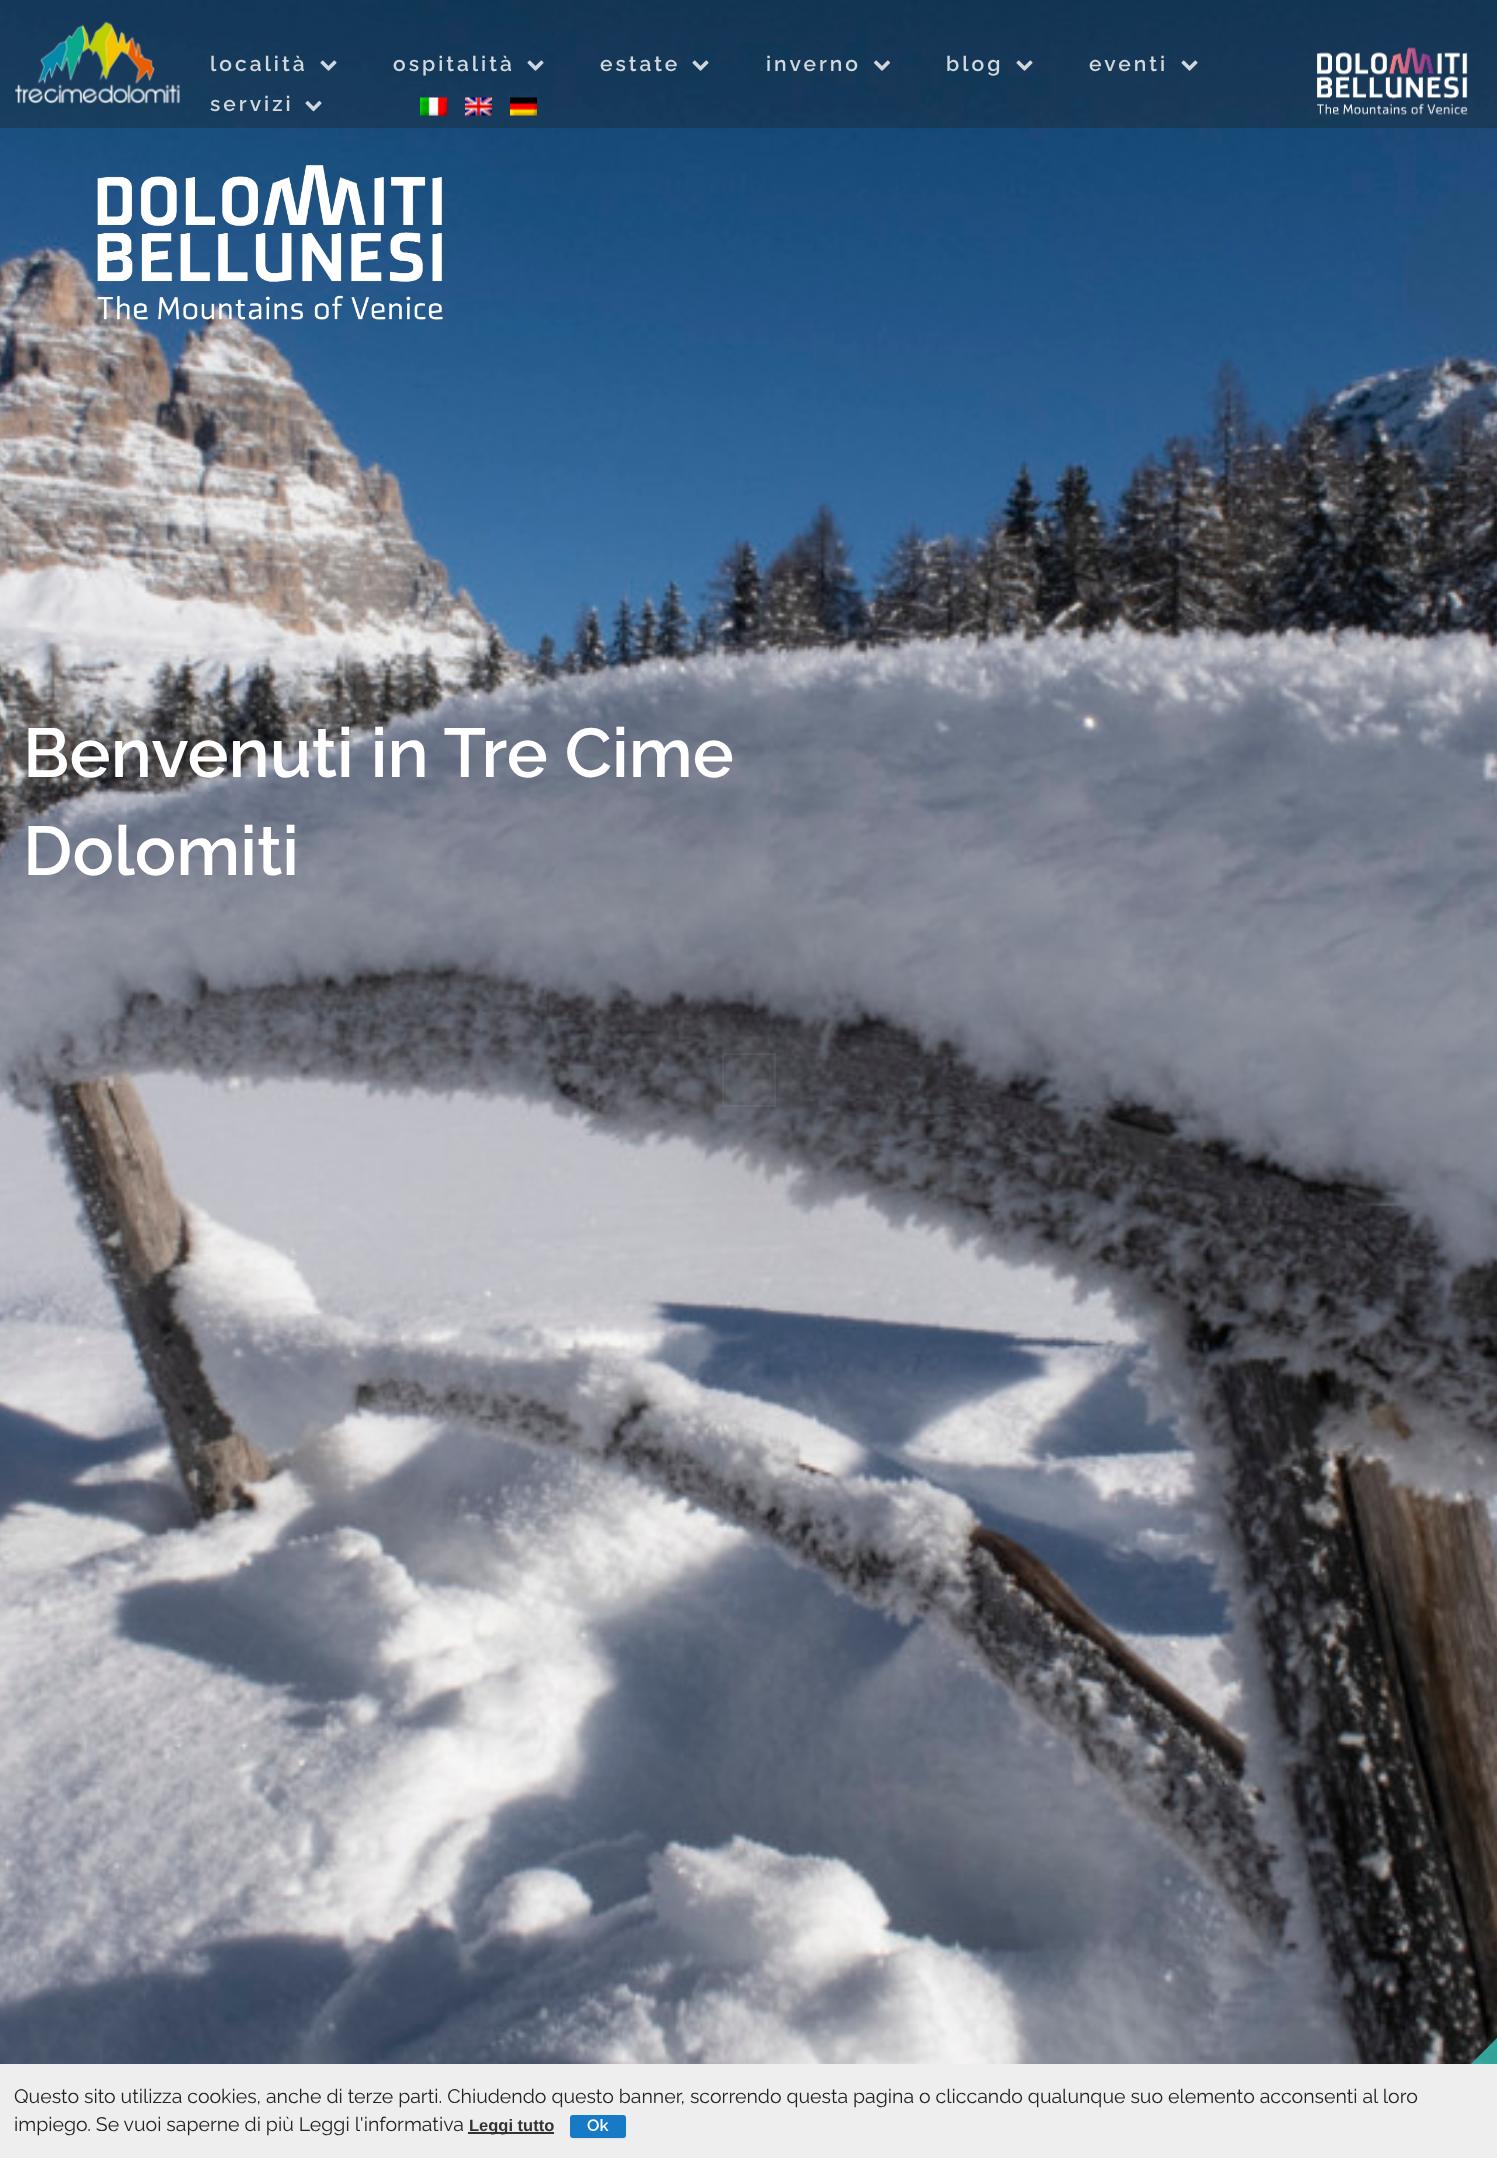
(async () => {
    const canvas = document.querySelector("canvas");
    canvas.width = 1497;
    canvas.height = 2158;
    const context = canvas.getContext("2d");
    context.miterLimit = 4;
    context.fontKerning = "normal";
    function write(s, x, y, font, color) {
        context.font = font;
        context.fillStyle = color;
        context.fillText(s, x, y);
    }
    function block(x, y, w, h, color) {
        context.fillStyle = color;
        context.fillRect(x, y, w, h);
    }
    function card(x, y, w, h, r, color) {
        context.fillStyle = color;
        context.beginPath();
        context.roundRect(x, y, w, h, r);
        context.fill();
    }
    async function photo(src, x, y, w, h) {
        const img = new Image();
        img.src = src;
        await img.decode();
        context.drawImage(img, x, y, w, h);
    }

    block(0, 0, 1497, 2158, "rgb(255, 255, 255)");
    await photo("media/14.png", 0, 0, 1497, 2064);
    block(0, 0, 1497, 128, "rgba(27, 27, 27, 0.3)");
    await photo("media/1.png", 15, 21, 165, 83);
    context.letterSpacing = "3px";
    write("località", 210, 71, "600 21px Raleway", "rgb(209, 216, 222)");
    await photo("media/2.png", 320, 60, 17, 11);
    write("ospitalità", 393, 71, "600 21px Raleway", "rgb(209, 216, 222)");
    await photo("media/3.png", 527, 60, 17, 11);
    write("estate", 600, 71, "600 21px Raleway", "rgb(209, 216, 222)");
    await photo("media/4.png", 692, 60, 17, 11);
    write("inverno", 766, 71, "600 21px Raleway", "rgb(209, 216, 222)");
    await photo("media/5.png", 874, 60, 16, 11);
    write("blog", 946, 71, "600 21px Raleway", "rgb(209, 216, 222)");
    await photo("media/6.png", 1016, 60, 17, 11);
    write("eventi", 1089, 71, "600 21px Raleway", "rgb(209, 216, 222)");
    await photo("media/7.png", 1181, 60, 17, 11);
    write("servizi", 210, 111, "600 21px Raleway", "rgb(209, 216, 222)");
    await photo("media/8.png", 305, 101, 17, 11);
    await photo("media/9.png", 420, 97, 27, 19);
    await photo("media/10.png", 465, 97, 27, 19);
    await photo("media/11.png", 510, 97, 27, 19);
    await photo("media/12.png", 1317, 47, 151, 68);
    await photo("media/13.png", 97, 165, 346, 155);
    context.letterSpacing = "0px";
    write("Benvenuti in Tre Cime", 23, 777, "600 69px Raleway", "rgb(255, 255, 255)");
    write("Dolomiti", 23, 875, "600 69px Raleway", "rgb(255, 255, 255)");
    block(722, 1053, 54, 54, "rgba(255, 255, 255, 0.03)");
    await photo("media/15.png", 726, 1058, 45, 44);
    context.strokeStyle = "rgba(255, 255, 255, 0.04)";
    context.lineWidth = 2;
    context.strokeRect(723, 1054, 52, 52);
    context.fillStyle = "rgba(54, 179, 168, 0.9)";
    context.beginPath();
    context.moveTo(1497, 2158);
    context.lineTo(1377, 2158);
    context.lineTo(1497, 2038);
    context.closePath();
    context.fill();
    block(0, 2064, 1497, 94, "rgb(238, 238, 238)");
    write("Questo sito utilizza cookies, anche di terze parti. Chiudendo questo banner, scorrendo questa pagina o cliccando qualunque suo elemento acconsenti al loro", 14, 2103, "19.5px Raleway", "rgb(34, 34, 34)");
    write("impiego. Se vuoi saperne di più Leggi l'informativa", 14, 2131, "19.5px Raleway", "rgb(34, 34, 34)");
    block(468, 2132, 86, 2, "rgb(51, 51, 51)");
    write("Leggi tutto", 469, 2131, "bold 16.5px Liberation Sans", "rgb(51, 51, 51)");
    context.fillStyle = "rgb(226, 226, 226)";
    context.beginPath();
    context.moveTo(570, 2134);
    context.bezierCurveTo(570, 2141, 575, 2139, 581, 2139);
    context.lineTo(623, 2139);
    context.bezierCurveTo(628, 2139, 626, 2131, 626, 2128);
    context.bezierCurveTo(626, 2126, 627, 2121, 626, 2118);
    context.lineTo(626, 2134);
    context.bezierCurveTo(626, 2136, 624, 2138, 622, 2138);
    context.lineTo(573, 2138);
    context.bezierCurveTo(571, 2138, 570, 2136, 570, 2134);
    context.closePath();
    context.fill();
    card(570, 2115, 56, 23, 3, "rgb(22, 122, 198)");
    write("Ok", 587, 2131, "600 16.5px Raleway", "rgb(255, 255, 255)");
})();
